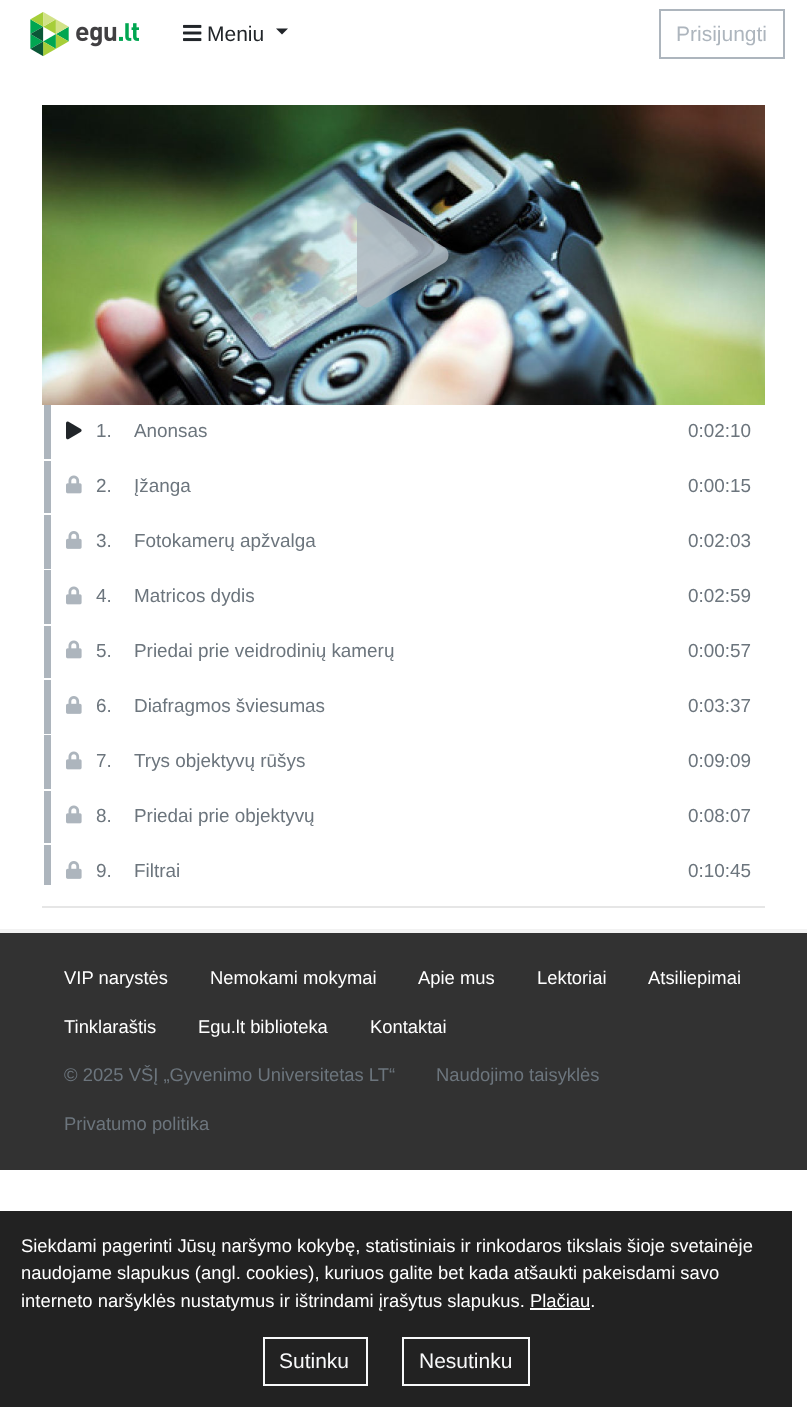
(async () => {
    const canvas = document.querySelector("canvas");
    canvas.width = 807;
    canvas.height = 1421;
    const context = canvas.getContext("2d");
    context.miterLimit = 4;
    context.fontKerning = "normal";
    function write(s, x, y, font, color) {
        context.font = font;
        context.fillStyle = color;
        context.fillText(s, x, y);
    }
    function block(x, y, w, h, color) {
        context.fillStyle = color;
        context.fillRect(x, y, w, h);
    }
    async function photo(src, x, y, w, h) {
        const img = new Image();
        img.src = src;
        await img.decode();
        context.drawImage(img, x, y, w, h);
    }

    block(0, 0, 807, 1421, "rgb(255, 255, 255)");
    await photo("media/1.png", 30, 12, 109, 45);
    await photo("media/2.png", 183, 24, 19, 18);
    write("Meniu", 207, 41, "21px Liberation Sans", "rgb(33, 37, 41)");
    context.beginPath();
    context.moveTo(276, 28.5);
    context.lineTo(288, 28.5);
    context.lineTo(282, 34.5);
    context.closePath();
    context.fill();
    context.strokeStyle = "rgb(173, 181, 189)";
    context.lineWidth = 2;
    context.strokeRect(660, 10, 124, 48);
    write("Prisijungti", 676, 41, "21px Liberation Sans", "rgb(173, 181, 189)");
    await photo("media/3.png", 42, 105, 723, 300);
    context.fillStyle = "rgba(173, 181, 189, 0.8)";
    context.beginPath();
    context.moveTo(444, 247);
    context.lineTo(372, 204);
    context.bezierCurveTo(366, 200, 357, 204, 357, 212);
    context.lineTo(357, 298);
    context.bezierCurveTo(357, 305, 365, 310, 372, 306);
    context.lineTo(444, 263);
    context.bezierCurveTo(450, 260, 450, 250, 444, 247);
    context.closePath();
    context.fill();
    block(44, 405, 7, 54, "rgb(173, 181, 189)");
    await photo("media/4.png", 66, 421, 16, 19);
    write("1.", 96, 437, "18.9px Liberation Sans", "rgb(108, 117, 125)");
    write("Anonsas", 134, 437, "18.9px Liberation Sans", "rgb(108, 117, 125)");
    write("0:02:10", 688, 437, "18.9px Liberation Sans", "rgb(108, 117, 125)");
    block(44, 461, 7, 52, "rgb(173, 181, 189)");
    await photo("media/5.png", 66, 475, 16, 19);
    write("2.", 96, 492, "18.9px Liberation Sans", "rgb(108, 117, 125)");
    write("Įžanga", 134, 492, "18.9px Liberation Sans", "rgb(108, 117, 125)");
    write("0:00:15", 688, 492, "18.9px Liberation Sans", "rgb(108, 117, 125)");
    block(44, 515, 7, 54, "rgb(173, 181, 189)");
    await photo("media/6.png", 66, 531, 16, 18);
    write("3.", 96, 547, "18.9px Liberation Sans", "rgb(108, 117, 125)");
    write("Fotokamerų apžvalga", 134, 547, "18.9px Liberation Sans", "rgb(108, 117, 125)");
    write("0:02:03", 688, 547, "18.9px Liberation Sans", "rgb(108, 117, 125)");
    block(44, 570, 7, 54, "rgb(173, 181, 189)");
    await photo("media/5.png", 66, 586, 16, 19);
    write("4.", 96, 602, "18.9px Liberation Sans", "rgb(108, 117, 125)");
    write("Matricos dydis", 134, 602, "18.9px Liberation Sans", "rgb(108, 117, 125)");
    write("0:02:59", 688, 602, "18.9px Liberation Sans", "rgb(108, 117, 125)");
    block(44, 626, 7, 52, "rgb(173, 181, 189)");
    await photo("media/5.png", 66, 640, 16, 19);
    write("5.", 96, 657, "18.9px Liberation Sans", "rgb(108, 117, 125)");
    write("Priedai prie veidrodinių kamerų", 134, 657, "18.9px Liberation Sans", "rgb(108, 117, 125)");
    write("0:00:57", 688, 657, "18.9px Liberation Sans", "rgb(108, 117, 125)");
    block(44, 680, 7, 54, "rgb(173, 181, 189)");
    await photo("media/6.png", 66, 696, 16, 18);
    write("6.", 96, 712, "18.9px Liberation Sans", "rgb(108, 117, 125)");
    write("Diafragmos šviesumas", 134, 712, "18.9px Liberation Sans", "rgb(108, 117, 125)");
    write("0:03:37", 688, 712, "18.9px Liberation Sans", "rgb(108, 117, 125)");
    block(44, 735, 7, 54, "rgb(173, 181, 189)");
    await photo("media/5.png", 66, 751, 16, 19);
    write("7.", 96, 767, "18.9px Liberation Sans", "rgb(108, 117, 125)");
    write("Trys objektyvų rūšys", 134, 767, "18.9px Liberation Sans", "rgb(108, 117, 125)");
    write("0:09:09", 688, 767, "18.9px Liberation Sans", "rgb(108, 117, 125)");
    block(44, 791, 7, 52, "rgb(173, 181, 189)");
    await photo("media/5.png", 66, 805, 16, 19);
    write("8.", 96, 822, "18.9px Liberation Sans", "rgb(108, 117, 125)");
    write("Priedai prie objektyvų", 134, 822, "18.9px Liberation Sans", "rgb(108, 117, 125)");
    write("0:08:07", 688, 822, "18.9px Liberation Sans", "rgb(108, 117, 125)");
    block(44, 845, 7, 40, "rgb(173, 181, 189)");
    await photo("media/6.png", 66, 861, 16, 18);
    write("9.", 96, 877, "18.9px Liberation Sans", "rgb(108, 117, 125)");
    write("Filtrai", 134, 877, "18.9px Liberation Sans", "rgb(108, 117, 125)");
    write("0:10:45", 688, 877, "18.9px Liberation Sans", "rgb(108, 117, 125)");
    block(42, 906, 723, 2, "rgb(230, 230, 230)");
    block(0, 929, 807, 4, "rgb(242, 242, 242)");
    block(0, 933, 807, 237, "rgb(50, 50, 50)");
    write("VIP narystės", 64, 984, "18.4px Liberation Sans", "rgb(255, 255, 255)");
    write("Nemokami mokymai", 210, 984, "18.4px Liberation Sans", "rgb(255, 255, 255)");
    write("Apie mus", 418, 984, "18.4px Liberation Sans", "rgb(255, 255, 255)");
    write("Lektoriai", 537, 984, "18.4px Liberation Sans", "rgb(255, 255, 255)");
    write("Atsiliepimai", 648, 984, "18.4px Liberation Sans", "rgb(255, 255, 255)");
    write("Tinklaraštis", 64, 1033, "18.4px Liberation Sans", "rgb(255, 255, 255)");
    write("Egu.lt biblioteka", 198, 1033, "18.4px Liberation Sans", "rgb(255, 255, 255)");
    write("Kontaktai", 370, 1033, "18.4px Liberation Sans", "rgb(255, 255, 255)");
    write("© 2025 VŠĮ „Gyvenimo Universitetas LT“", 64, 1081, "18.4px Liberation Sans", "rgb(108, 117, 125)");
    write("Naudojimo taisyklės", 436, 1081, "18.4px Liberation Sans", "rgb(108, 117, 125)");
    write("Privatumo politika", 64, 1130, "18.4px Liberation Sans", "rgb(108, 117, 125)");
    block(0, 1211, 792, 196, "rgb(34, 34, 34)");
    write("Siekdami pagerinti Jūsų naršymo kokybę, statistiniais ir rinkodaros tikslais šioje svetainėje", 21, 1252, "18.4px Liberation Sans", "rgb(255, 255, 255)");
    write("naudojame slapukus (angl. cookies), kuriuos galite bet kada atšaukti pakeisdami savo", 21, 1279, "18.4px Liberation Sans", "rgb(255, 255, 255)");
    write("interneto naršyklės nustatymus ir ištrindami įrašytus slapukus. Plačiau.", 21, 1307, "18.4px Liberation Sans", "rgb(255, 255, 255)");
    block(530, 1308, 60, 2, "rgb(255, 255, 255)");
    context.strokeStyle = "rgb(248, 249, 250)";
    context.strokeRect(264, 1338, 103, 47);
    write("Sutinku", 279, 1368, "21px Liberation Sans", "rgb(248, 249, 250)");
    context.strokeRect(403, 1338, 126, 47);
    write("Nesutinku", 419, 1368, "21px Liberation Sans", "rgb(248, 249, 250)");
})();
